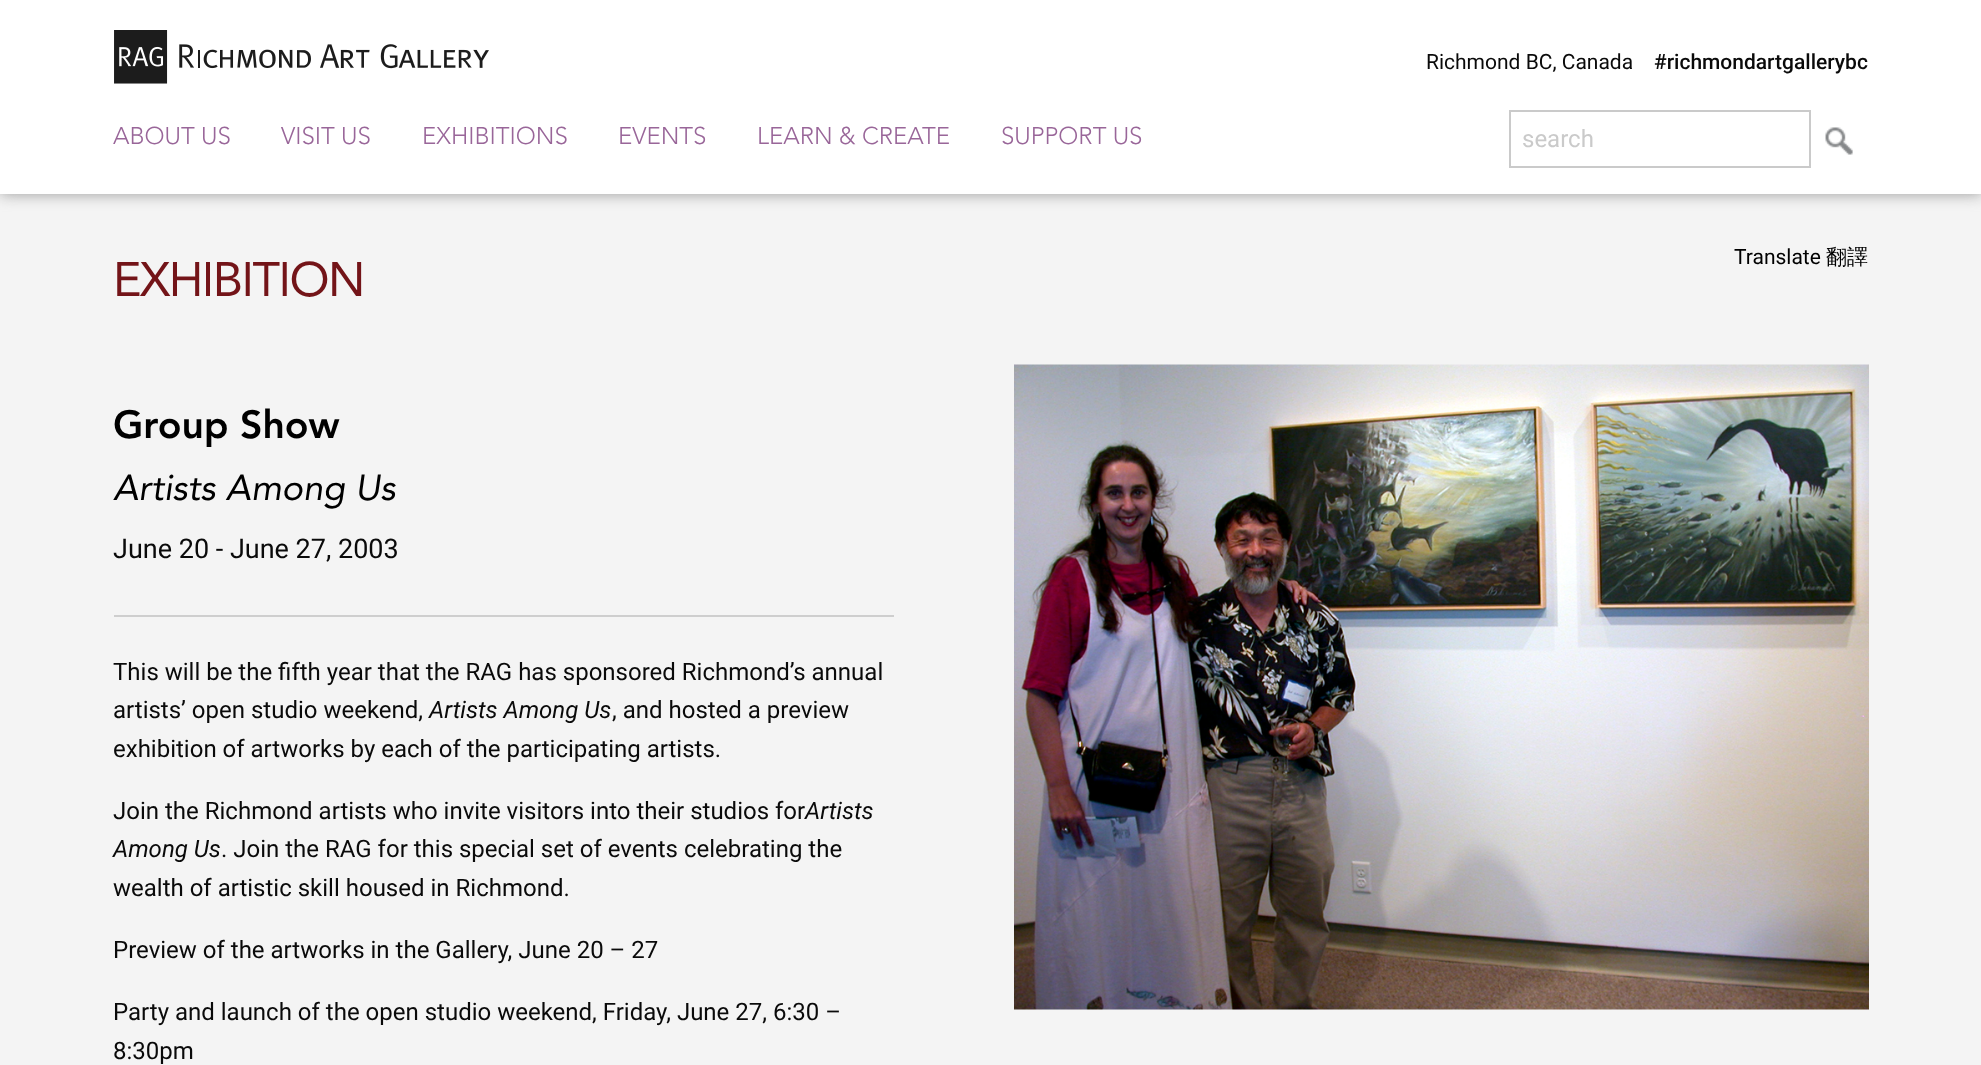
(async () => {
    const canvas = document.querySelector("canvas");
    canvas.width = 1981;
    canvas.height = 1065;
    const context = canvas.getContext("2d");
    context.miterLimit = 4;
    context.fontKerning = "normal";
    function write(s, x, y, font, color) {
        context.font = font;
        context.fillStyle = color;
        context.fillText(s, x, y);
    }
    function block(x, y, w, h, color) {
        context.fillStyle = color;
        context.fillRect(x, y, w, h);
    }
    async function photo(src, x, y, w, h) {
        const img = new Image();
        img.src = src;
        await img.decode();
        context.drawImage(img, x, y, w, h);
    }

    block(0, 0, 1981, 1065, "rgb(244, 244, 244)");
    context.fillStyle = "rgb(154, 154, 154)";
    context.filter = "blur(7.5px)";
    context.beginPath();
    context.rect(0, 0, 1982, 194);
    context.fill();
    context.filter = "none";
    block(0, 0, 1981, 194, "rgb(255, 255, 255)");
    await photo("media/1.png", 114, 30, 375, 54);
    write("Richmond BC, Canada", 1426, 69, "21px Roboto", "rgb(10, 10, 10)");
    write("#richmondartgallerybc", 1654, 69, "500 21px Roboto", "rgb(10, 10, 10)");
    write("ABOUT US", 113, 144, "300 24px Avenir", "rgb(153, 102, 153)");
    write("VISIT US", 281, 144, "300 24px Avenir", "rgb(153, 102, 153)");
    write("EXHIBITIONS", 422, 144, "300 24px Avenir", "rgb(153, 102, 153)");
    write("EVENTS", 618, 144, "300 24px Avenir", "rgb(153, 102, 153)");
    write("LEARN & CREATE", 757, 144, "300 24px Avenir", "rgb(153, 102, 153)");
    write("SUPPORT US", 1001, 144, "300 24px Avenir", "rgb(153, 102, 153)");
    context.strokeStyle = "rgb(202, 202, 202)";
    context.lineWidth = 2;
    context.strokeRect(1510, 111, 300, 56);
    write("search", 1522, 147, "24px Roboto", "rgb(202, 202, 202)");
    await photo("media/2.png", 1825, 127, 28, 28);
    write("Translate", 1734, 264, "21px Roboto", "rgb(0, 0, 0)");
    write("翻譯", 1826, 264, "500 21px WenQuanYi Zen Hei", "rgb(0, 0, 0)");
    context.letterSpacing = "-1.5px";
    write("EXHIBITION", 113, 296, "48px Avenir", "rgb(115, 20, 24)");
    context.letterSpacing = "0px";
    write("Group Show", 113, 438, "900 39px Avenir", "rgb(0, 0, 0)");
    write("Artists Among Us", 113, 500, "italic 36px Avenir", "rgb(0, 0, 0)");
    write("June 20 - June 27, 2003", 113, 558, "27px Roboto", "rgb(10, 10, 10)");
    block(114, 615, 780, 2, "rgb(206, 206, 206)");
    write("This will be the fifth year that the RAG has sponsored Richmond’s annual", 113, 680, "24px Roboto", "rgb(10, 10, 10)");
    write("artists’ open studio weekend,", 113, 718, "24px Roboto", "rgb(10, 10, 10)");
    write("Artists Among Us", 429, 718, "italic 24px Roboto", "rgb(10, 10, 10)");
    write(", and hosted a preview", 612, 718, "24px Roboto", "rgb(10, 10, 10)");
    write("exhibition of artworks by each of the participating artists.", 113, 757, "24px Roboto", "rgb(10, 10, 10)");
    write("Join the Richmond artists who invite visitors into their studios for", 113, 819, "24px Roboto", "rgb(10, 10, 10)");
    write("Artists", 805, 819, "italic 24px Roboto", "rgb(10, 10, 10)");
    write("Among Us", 113, 857, "italic 24px Roboto", "rgb(10, 10, 10)");
    write(". Join the RAG for this special set of events celebrating the", 221, 857, "24px Roboto", "rgb(10, 10, 10)");
    write("wealth of artistic skill housed in Richmond.", 113, 896, "24px Roboto", "rgb(10, 10, 10)");
    write("Preview of the artworks in the Gallery, June 20 – 27", 113, 958, "24px Roboto", "rgb(10, 10, 10)");
    write("Party and launch of the open studio weekend, Friday, June 27, 6:30 –", 113, 1020, "24px Roboto", "rgb(10, 10, 10)");
    write("8:30pm", 113, 1059, "24px Roboto", "rgb(10, 10, 10)");
    await photo("media/3.png", 1014, 364, 855, 646);
})();
